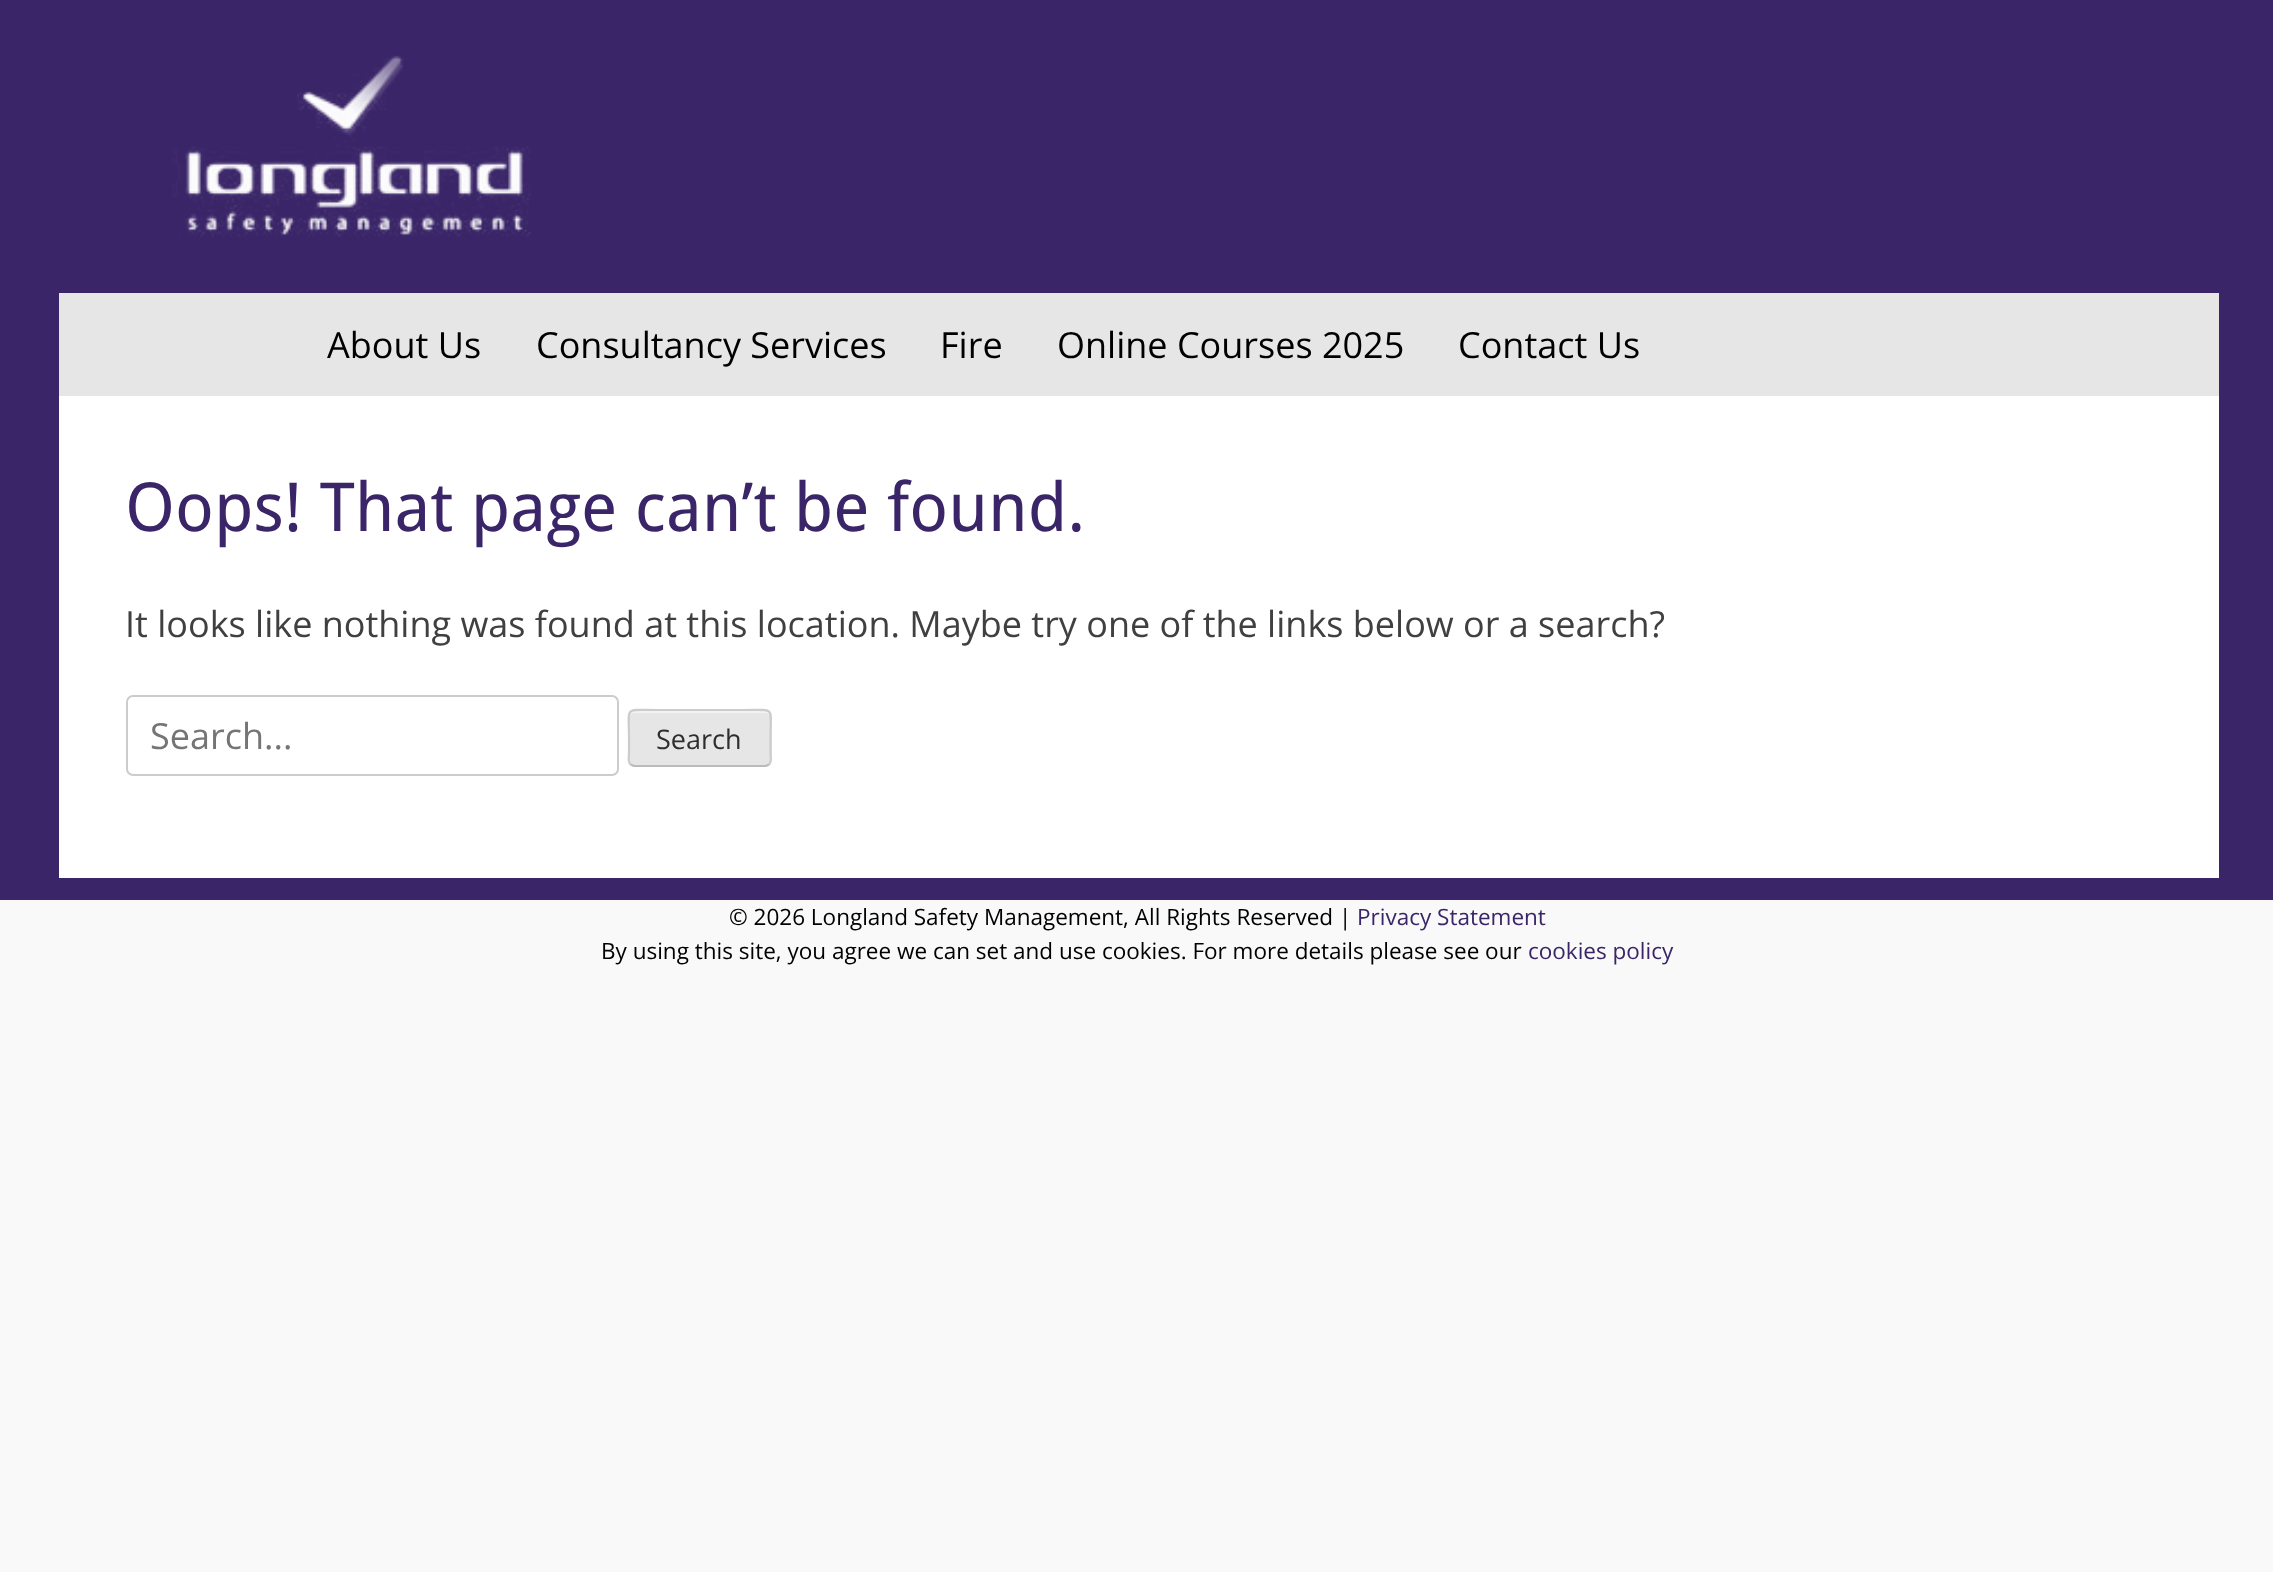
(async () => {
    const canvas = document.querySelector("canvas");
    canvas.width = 2273;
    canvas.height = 1572;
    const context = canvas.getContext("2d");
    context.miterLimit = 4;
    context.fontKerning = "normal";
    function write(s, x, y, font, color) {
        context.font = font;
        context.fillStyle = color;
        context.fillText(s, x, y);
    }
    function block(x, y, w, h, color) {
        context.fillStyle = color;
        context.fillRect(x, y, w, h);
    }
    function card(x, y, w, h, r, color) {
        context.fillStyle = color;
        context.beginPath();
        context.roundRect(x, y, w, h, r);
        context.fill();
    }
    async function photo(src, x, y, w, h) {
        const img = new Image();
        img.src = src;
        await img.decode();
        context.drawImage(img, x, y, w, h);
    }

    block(0, 0, 2273, 1572, "rgb(249, 249, 249)");
    block(0, 0, 2273, 900, "rgb(58, 37, 104)");
    await photo("media/1.png", 172, 55, 359, 182);
    block(59, 293, 2160, 103, "rgb(230, 230, 230)");
    write("About Us", 327, 358, "36px Open Sans", "rgb(0, 0, 0)");
    write("Consultancy Services", 536, 358, "36px Open Sans", "rgb(0, 0, 0)");
    write("Fire", 940, 358, "36px Open Sans", "rgb(0, 0, 0)");
    write("Online Courses 2025", 1057, 358, "36px Open Sans", "rgb(0, 0, 0)");
    write("Contact Us", 1458, 358, "36px Open Sans", "rgb(0, 0, 0)");
    block(59, 396, 2160, 482, "rgb(255, 255, 255)");
    write("Oops! That page can’t be found.", 125, 531, "67.5px Droid Sans", "rgb(58, 37, 104)");
    write("It looks like nothing was found at this location. Maybe try one of the links below or a search?", 125, 637, "36px Open Sans", "rgb(64, 64, 64)");
    context.beginPath();
    context.roundRect(127, 696, 491, 79, 6);
    context.strokeStyle = "rgb(204, 204, 204)";
    context.lineWidth = 2;
    context.stroke();
    write("Search...", 150, 749, "36px Open Sans", "rgb(117, 117, 117)");
    card(628, 709, 144, 58, 7, "rgb(230, 230, 230)");
    context.fillStyle = "rgb(243, 243, 243)";
    context.beginPath();
    context.moveTo(634, 713);
    context.lineTo(765, 713);
    context.bezierCurveTo(767, 713, 770, 715, 770, 718);
    context.lineTo(770, 716);
    context.bezierCurveTo(770, 713, 768, 711, 765, 711);
    context.lineTo(635, 711);
    context.bezierCurveTo(632, 711, 630, 713, 630, 716);
    context.lineTo(630, 718);
    context.bezierCurveTo(630, 715, 632, 713, 634, 713);
    context.closePath();
    context.fill();
    context.beginPath();
    context.moveTo(769, 764.5);
    context.lineTo(765.5, 766);
    context.lineTo(634, 766);
    context.lineTo(630.5, 764.5);
    context.strokeStyle = "rgb(187, 187, 187)";
    context.lineWidth = 2.2;
    context.stroke();
    context.beginPath();
    context.moveTo(630.5, 764.5);
    context.bezierCurveTo(627.5, 761.5, 629, 756, 629, 753);
    context.lineTo(629, 738);
    context.bezierCurveTo(629, 705.5, 623.5, 710, 656, 710);
    context.lineTo(743, 710);
    context.bezierCurveTo(776, 710, 770.5, 705.5, 770.5, 738);
    context.lineTo(770.5, 753);
    context.bezierCurveTo(770.5, 756, 772, 761.5, 769, 764.5);
    context.strokeStyle = "rgb(204, 204, 204)";
    context.stroke();
    write("Search", 656, 749, "27px Open Sans", "rgb(46, 46, 46)");
    write("© 2026 Longland Safety Management, All Rights Reserved |", 729, 925, "22.5px Open Sans", "rgb(0, 0, 0)");
    write("Privacy Statement", 1357, 925, "22.5px Open Sans", "rgb(58, 37, 104)");
    write("By using this site, you agree we can set and use cookies. For more details please see our", 601, 959, "22.5px Open Sans", "rgb(0, 0, 0)");
    write("cookies policy", 1528, 959, "22.5px Open Sans", "rgb(58, 37, 104)");
})();
